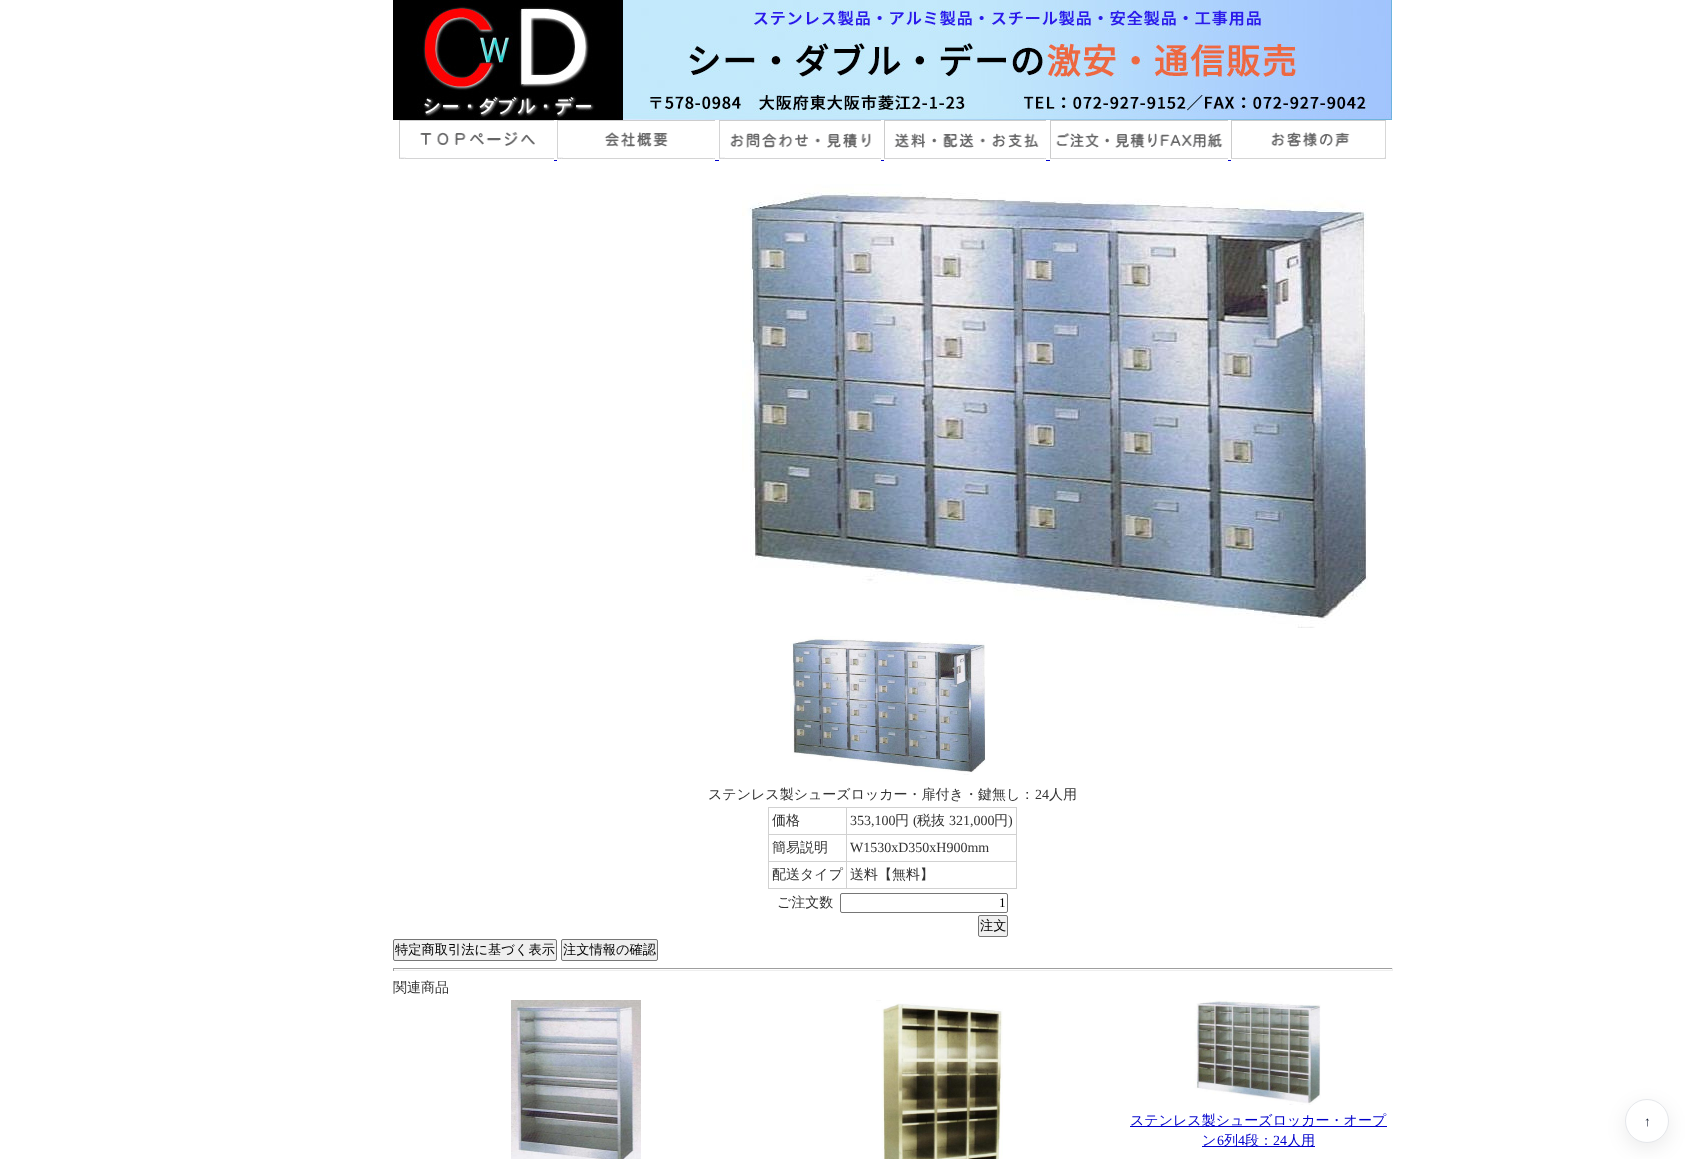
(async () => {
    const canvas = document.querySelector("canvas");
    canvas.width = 1685;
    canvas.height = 1159;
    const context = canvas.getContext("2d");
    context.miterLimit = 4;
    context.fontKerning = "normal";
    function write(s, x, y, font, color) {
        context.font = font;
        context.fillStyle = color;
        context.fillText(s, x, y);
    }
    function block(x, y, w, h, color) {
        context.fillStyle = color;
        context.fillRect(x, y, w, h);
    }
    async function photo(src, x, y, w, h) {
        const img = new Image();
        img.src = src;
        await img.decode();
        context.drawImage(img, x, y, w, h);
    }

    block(0, 0, 1685, 1159, "rgb(255, 255, 255)");
    await photo("media/1.png", 393, 0, 999, 120);
    await photo("media/2.png", 399, 120, 155, 39);
    await photo("media/3.png", 557, 120, 158, 39);
    await photo("media/4.png", 719, 120, 162, 39);
    await photo("media/5.png", 884, 120, 162, 39);
    await photo("media/6.png", 1050, 120, 178, 39);
    await photo("media/7.png", 1231, 120, 155, 39);
    block(554, 160, 3, 1, "rgb(0, 0, 204)");
    block(715, 160, 4, 1, "rgb(0, 0, 204)");
    block(881, 160, 3, 1, "rgb(0, 0, 204)");
    block(1046, 160, 4, 1, "rgb(0, 0, 204)");
    block(1228, 160, 3, 1, "rgb(0, 0, 204)");
    await photo("media/8.png", 742, 184, 626, 444);
    await photo("media/9.png", 790, 636, 196, 139);
    write("ステンレス製シューズロッカー・扉付き・鍵無し：", 708, 799, "500 14px WenQuanYi Zen Hei", "rgb(51, 51, 51)");
    write("24", 1035, 799, "14px Liberation Serif", "rgb(51, 51, 51)");
    write("人用", 1049, 799, "500 14px WenQuanYi Zen Hei", "rgb(51, 51, 51)");
    block(846, 807, 171, 1, "rgb(209, 209, 209)");
    block(846, 834, 171, 1, "rgb(209, 209, 209)");
    block(846, 861, 171, 1, "rgb(209, 209, 209)");
    block(1016, 861, 1, 28, "rgb(209, 209, 209)");
    block(846, 888, 171, 1, "rgb(209, 209, 209)");
    block(846, 861, 1, 28, "rgb(209, 209, 209)");
    block(768, 861, 79, 1, "rgb(209, 209, 209)");
    block(846, 834, 1, 28, "rgb(209, 209, 209)");
    block(768, 834, 79, 1, "rgb(209, 209, 209)");
    block(846, 807, 1, 28, "rgb(209, 209, 209)");
    block(768, 807, 79, 1, "rgb(209, 209, 209)");
    block(768, 888, 79, 1, "rgb(209, 209, 209)");
    block(768, 861, 1, 28, "rgb(209, 209, 209)");
    block(768, 834, 1, 28, "rgb(209, 209, 209)");
    block(768, 807, 1, 28, "rgb(209, 209, 209)");
    write("価格", 772, 825, "500 14px WenQuanYi Zen Hei", "rgb(51, 51, 51)");
    block(1016, 834, 1, 28, "rgb(209, 209, 209)");
    block(1016, 807, 1, 28, "rgb(209, 209, 209)");
    write("353,100", 850, 825, "14px Liberation Serif", "rgb(51, 51, 51)");
    write("円", 895, 825, "500 14px WenQuanYi Zen Hei", "rgb(51, 51, 51)");
    write("(", 913, 825, "14px Liberation Serif", "rgb(51, 51, 51)");
    write("税抜", 917, 825, "500 14px WenQuanYi Zen Hei", "rgb(51, 51, 51)");
    write("321,000", 949, 825, "14px Liberation Serif", "rgb(51, 51, 51)");
    write("円", 994, 825, "500 14px WenQuanYi Zen Hei", "rgb(51, 51, 51)");
    write(")", 1008, 825, "14px Liberation Serif", "rgb(51, 51, 51)");
    write("簡易説明", 772, 852, "500 14px WenQuanYi Zen Hei", "rgb(51, 51, 51)");
    write("W1530xD350xH900mm", 850, 852, "14px Liberation Serif", "rgb(51, 51, 51)");
    write("配送タイプ", 772, 879, "500 14px WenQuanYi Zen Hei", "rgb(51, 51, 51)");
    write("送料【無料】", 850, 879, "500 14px WenQuanYi Zen Hei", "rgb(51, 51, 51)");
    write("ご注文数", 777, 907, "500 14px WenQuanYi Zen Hei", "rgb(51, 51, 51)");
    context.beginPath();
    context.roundRect(840.5, 893.5, 167, 19, 1.5);
    context.strokeStyle = "rgb(118, 118, 118)";
    context.stroke();
    write("1", 999, 907, "13.25px Liberation Serif", "rgb(0, 0, 0)");
    context.fillStyle = "rgb(239, 239, 239)";
    context.beginPath();
    context.roundRect(978.5, 915.5, 29, 21, 1.5);
    context.fill();
    context.stroke();
    write("注文", 980, 930, "500 13.25px WenQuanYi Zen Hei", "rgb(0, 0, 0)");
    context.fillStyle = "rgb(239, 239, 239)";
    context.beginPath();
    context.roundRect(393.5, 939.5, 163, 21, 1.5);
    context.fill();
    context.stroke();
    context.save();
    context.beginPath();
    context.rect(395, 941, 160, 18);
    context.clip();
    write("特定商取引法に基づく表示", 395, 954, "500 13.25px WenQuanYi Zen Hei", "rgb(0, 0, 0)");
    context.restore();
    context.beginPath();
    context.roundRect(561.5, 939.5, 96, 21, 1.5);
    context.fill();
    context.stroke();
    write("注文情報の確認", 563, 954, "500 13.25px WenQuanYi Zen Hei", "rgb(0, 0, 0)");
    block(393, 968, 1000, 1, "rgb(159, 159, 159)");
    block(1392, 968, 1, 3, "rgb(238, 238, 238)");
    block(393, 970, 1000, 1, "rgb(238, 238, 238)");
    block(393, 968, 1, 3, "rgb(159, 159, 159)");
    write("関連商品", 393, 992, "500 14px WenQuanYi Zen Hei", "rgb(51, 51, 51)");
    await photo("media/10.png", 511, 1000, 130, 159);
    await photo("media/11.png", 876, 1000, 127, 159);
    await photo("media/12.png", 1193, 1000, 128, 105);
    block(1130, 1126, 257, 1, "rgb(0, 0, 204)");
    write("ステンレス製シューズロッカー・オープ", 1130, 1125, "500 14px WenQuanYi Zen Hei", "rgb(0, 0, 204)");
    write("ン", 1202, 1145, "500 14px WenQuanYi Zen Hei", "rgb(0, 0, 204)");
    block(1202, 1146, 113, 1, "rgb(0, 0, 204)");
    write("6", 1217, 1145, "14px Liberation Serif", "rgb(0, 0, 204)");
    write("列", 1224, 1145, "500 14px WenQuanYi Zen Hei", "rgb(0, 0, 204)");
    write("4", 1238, 1145, "14px Liberation Serif", "rgb(0, 0, 204)");
    write("段：", 1245, 1145, "500 14px WenQuanYi Zen Hei", "rgb(0, 0, 204)");
    write("24", 1273, 1145, "14px Liberation Serif", "rgb(0, 0, 204)");
    write("人用", 1287, 1145, "500 14px WenQuanYi Zen Hei", "rgb(0, 0, 204)");
    context.fillStyle = "rgba(0, 0, 0, 0.08)";
    context.filter = "blur(10px)";
    context.beginPath();
    context.roundRect(1625, 1105, 44, 44, 22);
    context.fill();
    context.filter = "none";
    context.fillStyle = "rgb(255, 255, 255)";
    context.beginPath();
    context.arc(1647, 1121, 21.5, 0, Math.PI * 2);
    context.fill();
    context.strokeStyle = "rgb(229, 231, 235)";
    context.stroke();
    write("↑", 1644, 1126, "13.25px Liberation Sans", "rgb(15, 23, 42)");
})();
